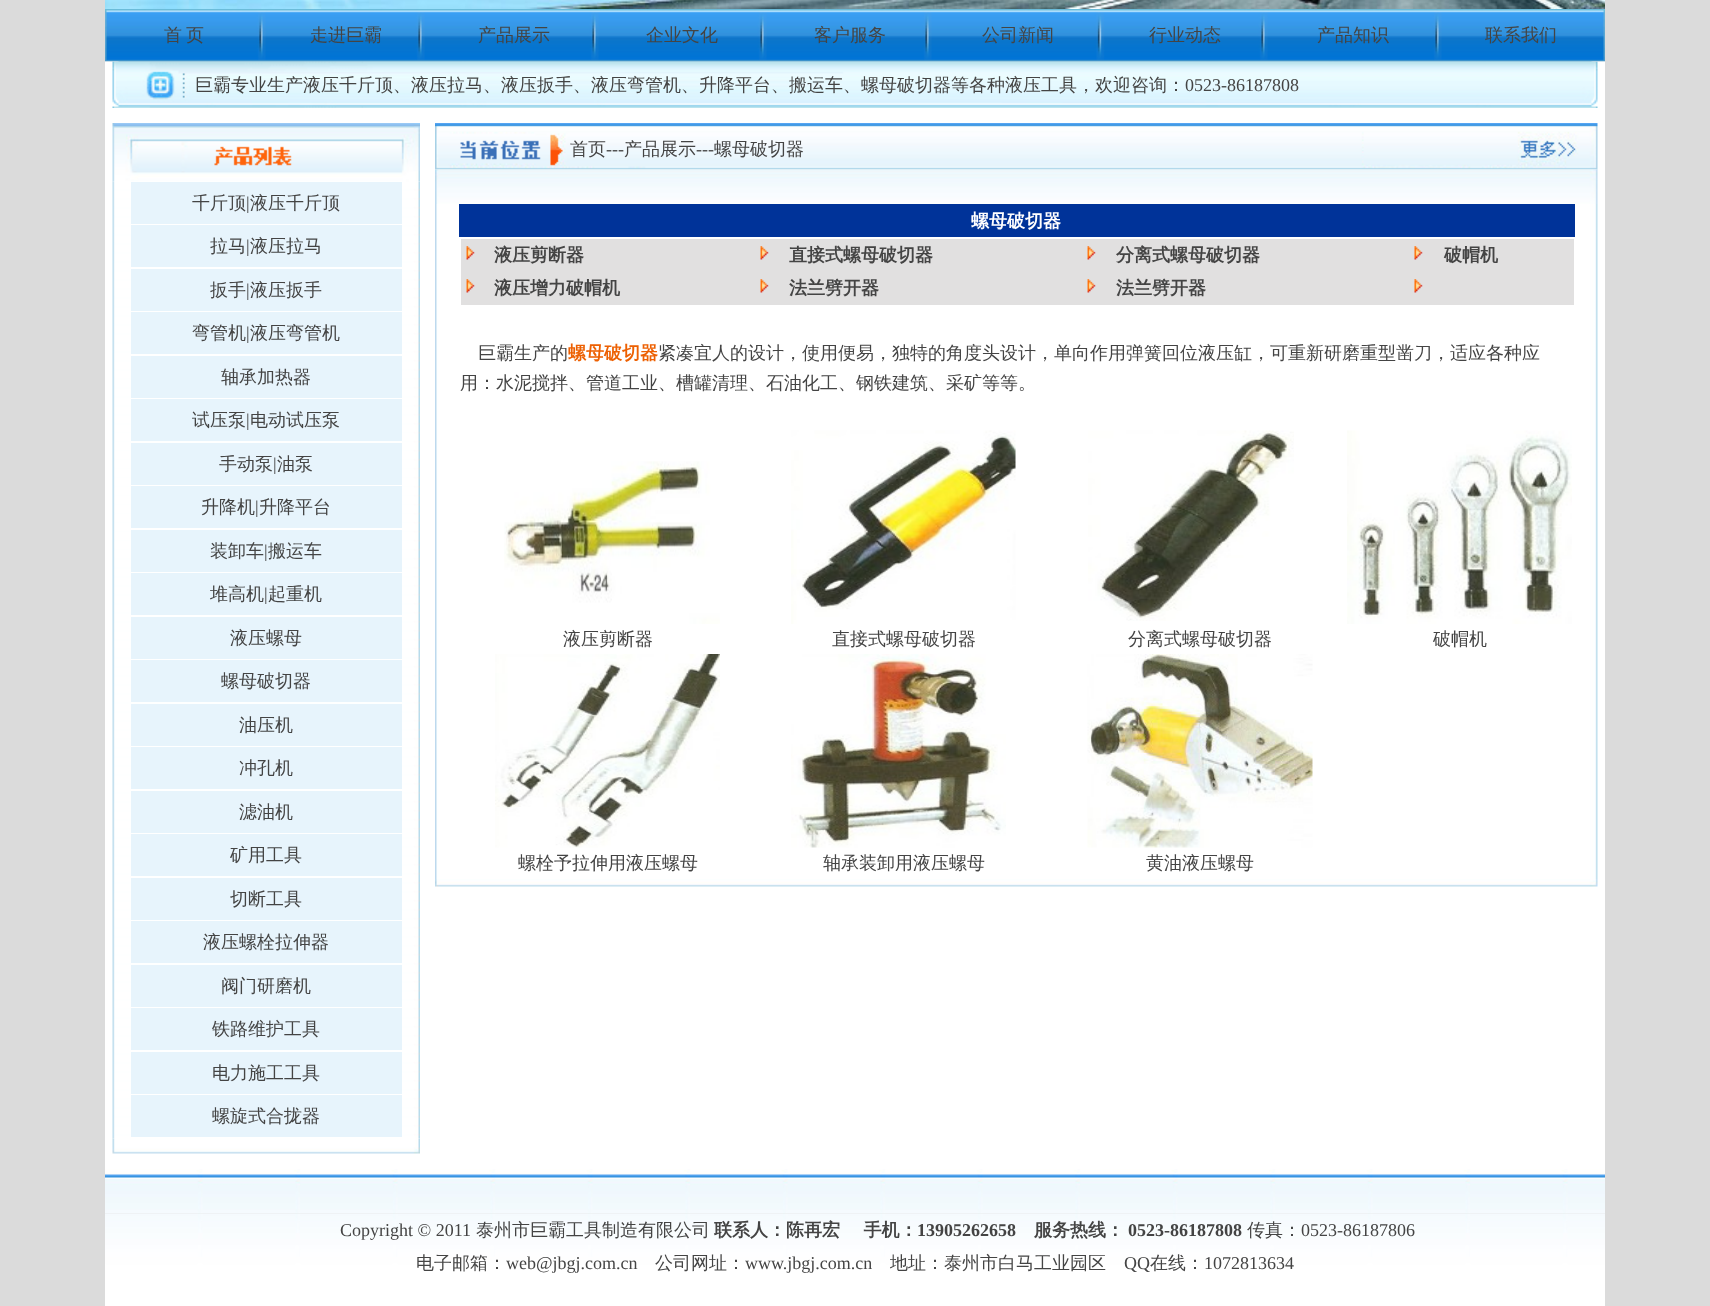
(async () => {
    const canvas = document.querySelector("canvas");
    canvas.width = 1710;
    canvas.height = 1306;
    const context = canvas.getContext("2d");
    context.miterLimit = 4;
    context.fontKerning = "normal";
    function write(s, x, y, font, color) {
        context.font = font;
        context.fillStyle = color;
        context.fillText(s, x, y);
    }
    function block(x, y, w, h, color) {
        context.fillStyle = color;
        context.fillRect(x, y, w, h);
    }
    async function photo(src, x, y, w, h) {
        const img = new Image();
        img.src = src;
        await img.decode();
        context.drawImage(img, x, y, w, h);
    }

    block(0, 0, 1710, 1306, "rgb(219, 219, 219)");
    await photo("media/1.png", 105, 0, 1500, 9);
    await photo("media/2.png", 105, 9, 1500, 53);
    write("首", 164, 41, "500 18px WenQuanYi Zen Hei", "rgb(68, 68, 68)");
    write("页", 186, 41, "500 18px WenQuanYi Zen Hei", "rgb(68, 68, 68)");
    write("走进巨霸", 310, 41, "500 18px WenQuanYi Zen Hei", "rgb(68, 68, 68)");
    write("产品展示", 478, 41, "500 18px WenQuanYi Zen Hei", "rgb(68, 68, 68)");
    write("企业文化", 646, 41, "500 18px WenQuanYi Zen Hei", "rgb(68, 68, 68)");
    write("客户服务", 814, 41, "500 18px WenQuanYi Zen Hei", "rgb(68, 68, 68)");
    write("公司新闻", 982, 41, "500 18px WenQuanYi Zen Hei", "rgb(68, 68, 68)");
    write("行业动态", 1149, 41, "500 18px WenQuanYi Zen Hei", "rgb(68, 68, 68)");
    write("产品知识", 1317, 41, "500 18px WenQuanYi Zen Hei", "rgb(68, 68, 68)");
    write("联系我们", 1485, 41, "500 18px WenQuanYi Zen Hei", "rgb(68, 68, 68)");
    await photo("media/3.png", 105, 61, 1500, 47);
    write("巨霸专业生产液压千斤顶、液压拉马、液压扳手、液压弯管机、升降平台、搬运车、螺母破切器等各种液压工具，欢迎咨询：", 195, 91, "500 18px WenQuanYi Zen Hei", "rgb(68, 68, 68)");
    write("0523-86187808", 1185, 91, "18px Liberation Serif", "rgb(68, 68, 68)");
    block(105, 108, 1500, 1061, "rgb(255, 255, 255)");
    await photo("media/5.png", 112, 181, 308, 958);
    await photo("media/4.png", 112, 123, 308, 59);
    block(131, 182, 271, 42, "rgb(231, 244, 252)");
    write("千斤顶", 192, 209, "500 18px WenQuanYi Zen Hei", "rgb(68, 68, 68)");
    write("|", 246, 209, "18px Liberation Serif", "rgb(68, 68, 68)");
    write("液压千斤顶", 250, 209, "500 18px WenQuanYi Zen Hei", "rgb(68, 68, 68)");
    block(131, 225, 271, 42, "rgb(231, 244, 252)");
    write("拉马", 210, 252, "500 18px WenQuanYi Zen Hei", "rgb(68, 68, 68)");
    write("|", 246, 252, "18px Liberation Serif", "rgb(68, 68, 68)");
    write("液压拉马", 250, 252, "500 18px WenQuanYi Zen Hei", "rgb(68, 68, 68)");
    block(131, 269, 271, 42, "rgb(231, 244, 252)");
    write("扳手", 210, 296, "500 18px WenQuanYi Zen Hei", "rgb(68, 68, 68)");
    write("|", 246, 296, "18px Liberation Serif", "rgb(68, 68, 68)");
    write("液压扳手", 250, 296, "500 18px WenQuanYi Zen Hei", "rgb(68, 68, 68)");
    block(131, 312, 271, 42, "rgb(231, 244, 252)");
    write("弯管机", 192, 339, "500 18px WenQuanYi Zen Hei", "rgb(68, 68, 68)");
    write("|", 246, 339, "18px Liberation Serif", "rgb(68, 68, 68)");
    write("液压弯管机", 250, 339, "500 18px WenQuanYi Zen Hei", "rgb(68, 68, 68)");
    block(131, 356, 271, 42, "rgb(231, 244, 252)");
    write("轴承加热器", 221, 383, "500 18px WenQuanYi Zen Hei", "rgb(68, 68, 68)");
    block(131, 399, 271, 42, "rgb(231, 244, 252)");
    write("试压泵", 192, 426, "500 18px WenQuanYi Zen Hei", "rgb(68, 68, 68)");
    write("|", 246, 426, "18px Liberation Serif", "rgb(68, 68, 68)");
    write("电动试压泵", 250, 426, "500 18px WenQuanYi Zen Hei", "rgb(68, 68, 68)");
    block(131, 443, 271, 42, "rgb(231, 244, 252)");
    write("手动泵", 219, 470, "500 18px WenQuanYi Zen Hei", "rgb(68, 68, 68)");
    write("|", 273, 470, "18px Liberation Serif", "rgb(68, 68, 68)");
    write("油泵", 277, 470, "500 18px WenQuanYi Zen Hei", "rgb(68, 68, 68)");
    block(131, 486, 271, 42, "rgb(231, 244, 252)");
    write("升降机", 201, 513, "500 18px WenQuanYi Zen Hei", "rgb(68, 68, 68)");
    write("|", 255, 513, "18px Liberation Serif", "rgb(68, 68, 68)");
    write("升降平台", 259, 513, "500 18px WenQuanYi Zen Hei", "rgb(68, 68, 68)");
    block(131, 530, 271, 42, "rgb(231, 244, 252)");
    write("装卸车", 210, 557, "500 18px WenQuanYi Zen Hei", "rgb(68, 68, 68)");
    write("|", 264, 557, "18px Liberation Serif", "rgb(68, 68, 68)");
    write("搬运车", 268, 557, "500 18px WenQuanYi Zen Hei", "rgb(68, 68, 68)");
    block(131, 573, 271, 42, "rgb(231, 244, 252)");
    write("堆高机", 210, 600, "500 18px WenQuanYi Zen Hei", "rgb(68, 68, 68)");
    write("|", 264, 600, "18px Liberation Serif", "rgb(68, 68, 68)");
    write("起重机", 268, 600, "500 18px WenQuanYi Zen Hei", "rgb(68, 68, 68)");
    block(131, 617, 271, 42, "rgb(231, 244, 252)");
    write("液压螺母", 230, 644, "500 18px WenQuanYi Zen Hei", "rgb(68, 68, 68)");
    block(131, 660, 271, 42, "rgb(231, 244, 252)");
    write("螺母破切器", 221, 687, "500 18px WenQuanYi Zen Hei", "rgb(68, 68, 68)");
    block(131, 704, 271, 42, "rgb(231, 244, 252)");
    write("油压机", 239, 731, "500 18px WenQuanYi Zen Hei", "rgb(68, 68, 68)");
    block(131, 747, 271, 42, "rgb(231, 244, 252)");
    write("冲孔机", 239, 774, "500 18px WenQuanYi Zen Hei", "rgb(68, 68, 68)");
    block(131, 791, 271, 42, "rgb(231, 244, 252)");
    write("滤油机", 239, 818, "500 18px WenQuanYi Zen Hei", "rgb(68, 68, 68)");
    block(131, 834, 271, 42, "rgb(231, 244, 252)");
    write("矿用工具", 230, 861, "500 18px WenQuanYi Zen Hei", "rgb(68, 68, 68)");
    block(131, 878, 271, 42, "rgb(231, 244, 252)");
    write("切断工具", 230, 905, "500 18px WenQuanYi Zen Hei", "rgb(68, 68, 68)");
    block(131, 921, 271, 42, "rgb(231, 244, 252)");
    write("液压螺栓拉伸器", 203, 948, "500 18px WenQuanYi Zen Hei", "rgb(68, 68, 68)");
    block(131, 965, 271, 42, "rgb(231, 244, 252)");
    write("阀门研磨机", 221, 992, "500 18px WenQuanYi Zen Hei", "rgb(68, 68, 68)");
    block(131, 1008, 271, 42, "rgb(231, 244, 252)");
    write("铁路维护工具", 212, 1035, "500 18px WenQuanYi Zen Hei", "rgb(68, 68, 68)");
    block(131, 1052, 271, 42, "rgb(231, 244, 252)");
    write("电力施工工具", 212, 1079, "500 18px WenQuanYi Zen Hei", "rgb(68, 68, 68)");
    block(131, 1095, 271, 42, "rgb(231, 244, 252)");
    write("螺旋式合拢器", 212, 1122, "500 18px WenQuanYi Zen Hei", "rgb(68, 68, 68)");
    await photo("media/6.png", 112, 1138, 308, 16);
    await photo("media/7.png", 435, 123, 1163, 47);
    write("首页", 570, 155, "500 18px WenQuanYi Zen Hei", "rgb(68, 68, 68)");
    write("---", 606, 155, "18px Liberation Serif", "rgb(68, 68, 68)");
    write("产品展示", 624, 155, "500 18px WenQuanYi Zen Hei", "rgb(68, 68, 68)");
    write("---", 696, 155, "18px Liberation Serif", "rgb(68, 68, 68)");
    write("螺母破切器", 714, 155, "500 18px WenQuanYi Zen Hei", "rgb(68, 68, 68)");
    await photo("media/8.png", 435, 169, 1163, 35);
    await photo("media/9.png", 435, 204, 1163, 675);
    block(459, 204, 1116, 33, "rgb(0, 51, 153)");
    write("螺母破切器", 971, 227, "bold 18px WenQuanYi Zen Hei", "rgb(255, 255, 255)");
    block(461, 239, 1113, 66, "rgb(225, 224, 224)");
    await photo("media/10.png", 466, 246, 9, 14);
    write("液压剪断器", 494, 261, "bold 18px WenQuanYi Zen Hei", "rgb(68, 68, 68)");
    await photo("media/11.png", 760, 246, 9, 14);
    write("直接式螺母破切器", 789, 261, "bold 18px WenQuanYi Zen Hei", "rgb(68, 68, 68)");
    await photo("media/10.png", 1087, 246, 9, 14);
    write("分离式螺母破切器", 1116, 261, "bold 18px WenQuanYi Zen Hei", "rgb(68, 68, 68)");
    await photo("media/12.png", 1414, 246, 9, 14);
    write("破帽机", 1444, 261, "bold 18px WenQuanYi Zen Hei", "rgb(68, 68, 68)");
    await photo("media/10.png", 466, 279, 9, 14);
    write("液压增力破帽机", 494, 294, "bold 18px WenQuanYi Zen Hei", "rgb(68, 68, 68)");
    await photo("media/11.png", 760, 279, 9, 14);
    write("法兰劈开器", 789, 294, "bold 18px WenQuanYi Zen Hei", "rgb(68, 68, 68)");
    await photo("media/10.png", 1087, 279, 9, 14);
    write("法兰劈开器", 1116, 294, "bold 18px WenQuanYi Zen Hei", "rgb(68, 68, 68)");
    await photo("media/12.png", 1414, 279, 9, 14);
    write("巨霸生产的", 478, 359, "500 18px WenQuanYi Zen Hei", "rgb(68, 68, 68)");
    write("螺母破切器", 568, 359, "bold 18px WenQuanYi Zen Hei", "rgb(237, 96, 2)");
    write("紧凑宜人的设计，使用便易，独特的角度头设计，单向作用弹簧回位液压缸，可重新研磨重型凿刀，适应各种应", 658, 359, "500 18px WenQuanYi Zen Hei", "rgb(68, 68, 68)");
    write("用：水泥搅拌、管道工业、槽罐清理、石油化工、钢铁建筑、采矿等等。", 460, 389, "500 18px WenQuanYi Zen Hei", "rgb(68, 68, 68)");
    await photo("media/13.png", 504, 461, 216, 163);
    write("液压剪断器", 563, 645, "500 18px WenQuanYi Zen Hei", "rgb(68, 68, 68)");
    await photo("media/14.png", 791, 430, 225, 194);
    write("直接式螺母破切器", 832, 645, "500 18px WenQuanYi Zen Hei", "rgb(68, 68, 68)");
    await photo("media/15.png", 1088, 430, 206, 191);
    write("分离式螺母破切器", 1128, 645, "500 18px WenQuanYi Zen Hei", "rgb(68, 68, 68)");
    await photo("media/16.png", 1347, 430, 225, 194);
    write("破帽机", 1433, 645, "500 18px WenQuanYi Zen Hei", "rgb(68, 68, 68)");
    await photo("media/17.png", 495, 654, 225, 194);
    write("螺栓予拉伸用液压螺母", 518, 869, "500 18px WenQuanYi Zen Hei", "rgb(68, 68, 68)");
    await photo("media/18.png", 791, 654, 215, 194);
    write("轴承装卸用液压螺母", 823, 869, "500 18px WenQuanYi Zen Hei", "rgb(68, 68, 68)");
    await photo("media/19.png", 1087, 654, 226, 194);
    write("黄油液压螺母", 1146, 869, "500 18px WenQuanYi Zen Hei", "rgb(68, 68, 68)");
    await photo("media/20.png", 435, 879, 1163, 8);
    await photo("media/21.png", 105, 1169, 1500, 45);
    await photo("media/22.png", 105, 1213, 1500, 93);
    write("Copyright © 2011", 340, 1236, "18px Liberation Serif", "rgb(68, 68, 68)");
    write("泰州市巨霸工具制造有限公司", 476, 1236, "500 18px WenQuanYi Zen Hei", "rgb(68, 68, 68)");
    write("联系人：陈再宏　 手机：", 714, 1236, "bold 18px WenQuanYi Zen Hei", "rgb(68, 68, 68)");
    write("13905262658", 917, 1236, "bold 18px Liberation Serif", "rgb(68, 68, 68)");
    write("服务热线：", 1034, 1236, "bold 18px WenQuanYi Zen Hei", "rgb(68, 68, 68)");
    write("0523-86187808", 1128, 1236, "bold 18px Liberation Serif", "rgb(68, 68, 68)");
    write("传真：", 1247, 1236, "500 18px WenQuanYi Zen Hei", "rgb(68, 68, 68)");
    write("0523-86187806", 1301, 1236, "18px Liberation Serif", "rgb(68, 68, 68)");
    write("电子邮箱：", 416, 1269, "500 18px WenQuanYi Zen Hei", "rgb(68, 68, 68)");
    write("web@jbgj.com.cn", 506, 1269, "18px Liberation Serif", "rgb(68, 68, 68)");
    write("公司网址：", 655, 1269, "500 18px WenQuanYi Zen Hei", "rgb(68, 68, 68)");
    write("www.jbgj.com.cn", 745, 1269, "18px Liberation Serif", "rgb(68, 68, 68)");
    write("地址：泰州市白马工业园区", 890, 1269, "500 18px WenQuanYi Zen Hei", "rgb(68, 68, 68)");
    write("QQ", 1124, 1269, "18px Liberation Serif", "rgb(68, 68, 68)");
    write("在线：", 1150, 1269, "500 18px WenQuanYi Zen Hei", "rgb(68, 68, 68)");
    write("1072813634", 1204, 1269, "18px Liberation Serif", "rgb(68, 68, 68)");
})();
